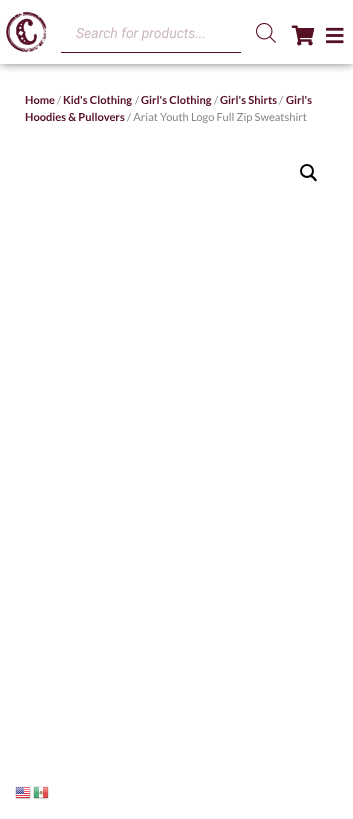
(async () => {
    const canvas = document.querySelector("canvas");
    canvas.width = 353;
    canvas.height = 819;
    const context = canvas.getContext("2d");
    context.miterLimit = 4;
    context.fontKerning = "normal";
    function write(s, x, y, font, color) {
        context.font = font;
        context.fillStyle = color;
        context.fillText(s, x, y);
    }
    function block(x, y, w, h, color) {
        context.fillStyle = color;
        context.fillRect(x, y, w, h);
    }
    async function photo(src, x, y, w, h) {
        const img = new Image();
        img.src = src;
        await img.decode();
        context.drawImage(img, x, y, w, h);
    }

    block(0, 0, 353, 819, "rgb(255, 255, 255)");
    context.save();
    context.beginPath();
    context.rect(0, 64, 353, 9);
    context.clip();
    context.fillStyle = "rgba(0, 0, 0, 0.5)";
    context.filter = "blur(5px)";
    context.beginPath();
    context.rect(0, 0, 353, 64);
    context.fill();
    context.filter = "none";
    context.restore();
    await photo("media/1.png", 6, 11, 41, 42);
    block(61, 52, 180, 1, "rgb(86, 16, 35)");
    write("Search for products...", 76, 38, "italic 14px Roboto", "rgb(204, 183, 189)");
    await photo("media/2.png", 256, 23, 20, 20);
    await photo("media/3.png", 291, 25, 24, 21);
    await photo("media/4.png", 326, 27, 18, 17);
    write("Home", 25, 104, "bold 11.1px Lato", "rgb(86, 16, 35)");
    write("/", 57, 104, "11.1px Lato", "rgb(135, 135, 135)");
    write("Kid's Clothing", 63, 104, "bold 11.1px Lato", "rgb(86, 16, 35)");
    write("/", 135, 104, "11.1px Lato", "rgb(135, 135, 135)");
    write("Girl's Clothing", 141, 104, "bold 11.1px Lato", "rgb(86, 16, 35)");
    write("/", 214, 104, "11.1px Lato", "rgb(135, 135, 135)");
    write("Girl's Shirts", 220, 104, "bold 11.1px Lato", "rgb(86, 16, 35)");
    write("/", 279, 104, "11.1px Lato", "rgb(135, 135, 135)");
    write("Girl's", 286, 104, "bold 11.1px Lato", "rgb(86, 16, 35)");
    write("Hoodies & Pullovers", 25, 121, "bold 11.1px Lato", "rgb(86, 16, 35)");
    write("/ Ariat Youth Logo Full Zip Sweatshirt", 127, 121, "11.1px Lato", "rgb(135, 135, 135)");
    context.beginPath();
    context.arc(307, 171, 6, 0, Math.PI * 2);
    context.strokeStyle = "rgb(0, 0, 0)";
    context.lineWidth = 2;
    context.stroke();
    context.fillStyle = "rgb(0, 0, 0)";
    context.beginPath();
    context.moveTo(310.5, 175);
    context.bezierCurveTo(312, 174, 313.5, 176.5, 314.5, 177);
    context.bezierCurveTo(315, 178, 317.5, 179.5, 316.5, 181);
    context.bezierCurveTo(315, 182, 313.5, 179.5, 313, 178.5);
    context.bezierCurveTo(312, 178, 309.5, 176.5, 310.5, 175);
    context.closePath();
    context.fill();
    await photo("media/5.png", 15, 786, 16, 14);
    await photo("media/6.png", 33, 786, 16, 14);
})();
